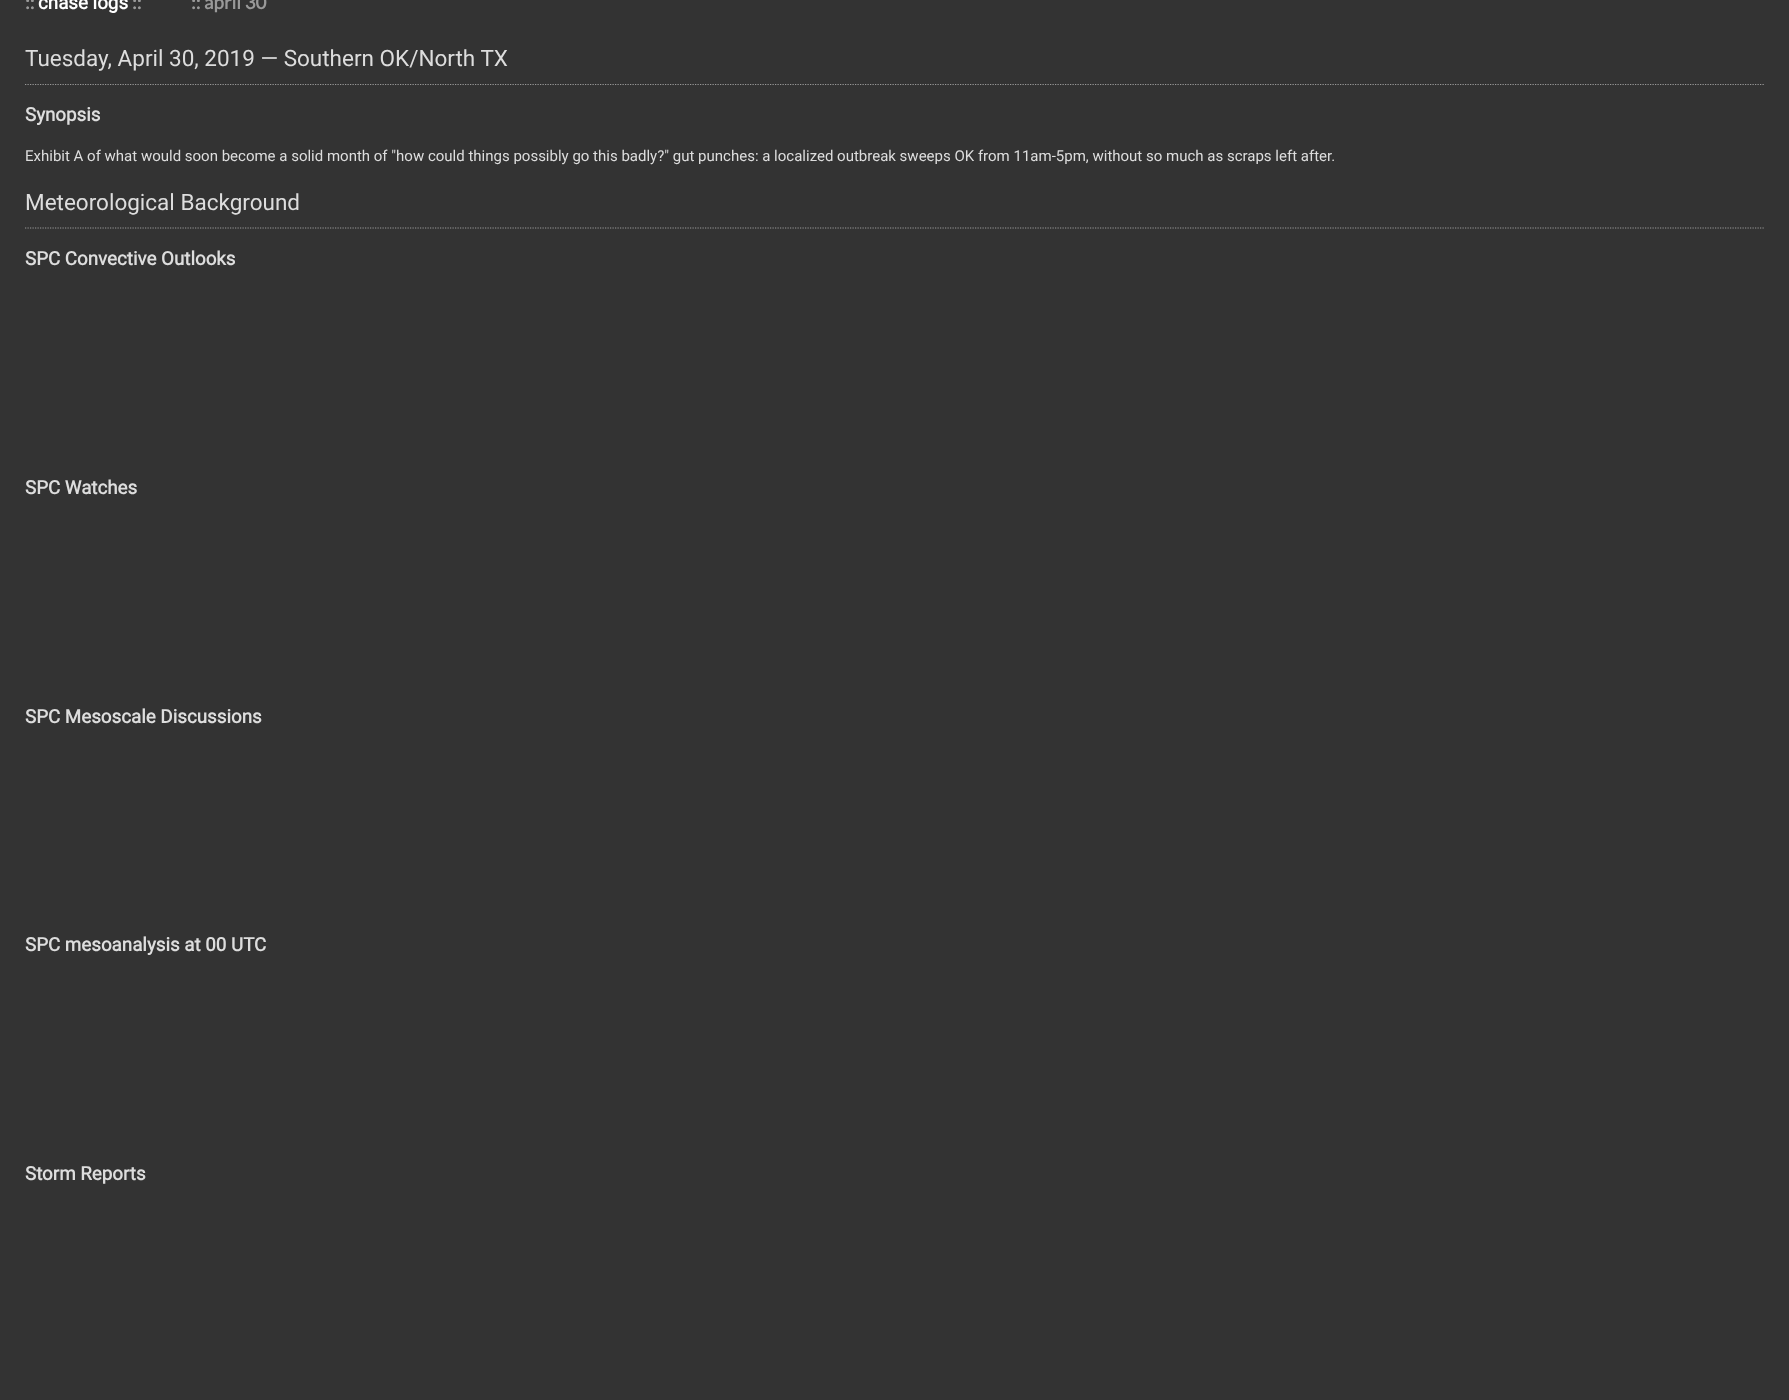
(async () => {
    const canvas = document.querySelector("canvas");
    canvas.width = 1789;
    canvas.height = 1400;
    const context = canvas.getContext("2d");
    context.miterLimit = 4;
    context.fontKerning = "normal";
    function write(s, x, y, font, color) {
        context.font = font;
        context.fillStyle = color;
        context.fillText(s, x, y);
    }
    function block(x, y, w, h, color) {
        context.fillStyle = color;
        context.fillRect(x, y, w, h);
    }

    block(0, 0, 1789, 1400, "rgb(51, 51, 51)");
    write("::", 25, 9, "bold 18.75px Lato", "rgb(153, 153, 153)");
    write("chase logs", 38, 9, "bold 18.75px Roboto", "rgb(255, 255, 255)");
    write("::", 132, 9, "bold 18.75px Lato", "rgb(153, 153, 153)");
    write(":: april 30", 191, 9, "bold 18.75px Lato", "rgb(153, 153, 153)");
    context.beginPath();
    context.moveTo(25, 84.5);
    context.lineTo(1765, 84.5);
    context.strokeStyle = "rgb(153, 153, 153)";
    context.lineWidth = 1.2;
    context.setLineDash([1.25, 1.25]);
    context.stroke();
    write("Tuesday, April 30, 2019 — Southern OK/North TX", 25, 66, "22.5px Roboto", "rgb(221, 221, 221)");
    write("Synopsis", 25, 121, "bold 18.75px Roboto", "rgb(221, 221, 221)");
    write("Exhibit A of what would soon become a solid month of \"how could things possibly go this badly?\" gut punches: a localized outbreak sweeps OK from 11am-5pm, without so much as scraps left after.", 25, 161, "15px Roboto", "rgb(221, 221, 221)");
    context.beginPath();
    context.moveTo(25, 228);
    context.lineTo(1765, 228);
    context.stroke();
    write("Meteorological Background", 25, 210, "22.5px Roboto", "rgb(221, 221, 221)");
    write("SPC Convective Outlooks", 25, 265, "bold 18.75px Roboto", "rgb(221, 221, 221)");
    write("SPC Watches", 25, 494, "bold 18.75px Roboto", "rgb(221, 221, 221)");
    write("SPC Mesoscale Discussions", 25, 723, "bold 18.75px Roboto", "rgb(221, 221, 221)");
    write("SPC mesoanalysis at 00 UTC", 25, 951, "bold 18.75px Roboto", "rgb(221, 221, 221)");
    write("Storm Reports", 25, 1180, "bold 18.75px Roboto", "rgb(221, 221, 221)");
})();
